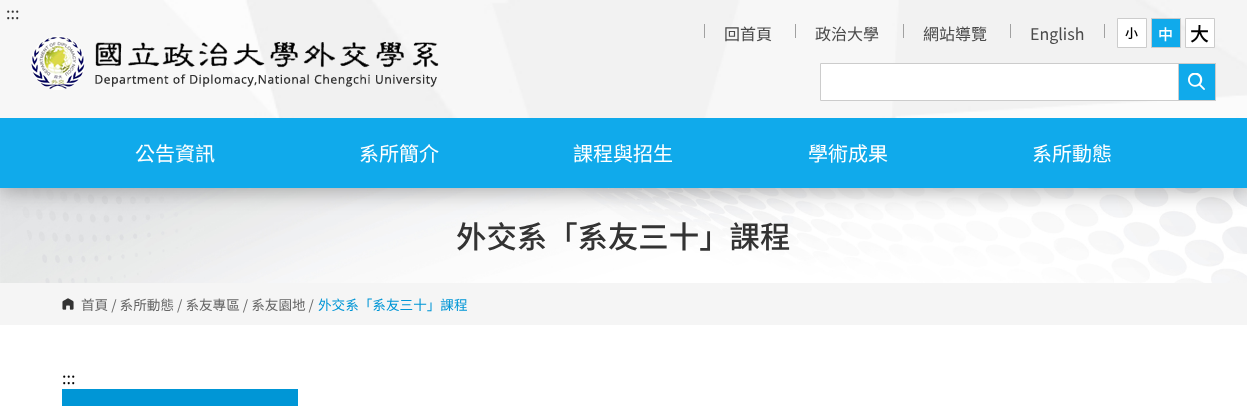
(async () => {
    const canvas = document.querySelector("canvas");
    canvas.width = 1247;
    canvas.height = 406;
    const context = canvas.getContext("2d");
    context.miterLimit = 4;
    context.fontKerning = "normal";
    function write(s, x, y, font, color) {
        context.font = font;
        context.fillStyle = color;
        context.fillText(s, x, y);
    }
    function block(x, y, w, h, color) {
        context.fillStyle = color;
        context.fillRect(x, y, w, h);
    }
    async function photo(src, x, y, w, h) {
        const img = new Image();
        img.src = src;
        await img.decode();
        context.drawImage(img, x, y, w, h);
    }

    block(0, 0, 1247, 406, "rgb(245, 245, 245)");
    await photo("media/4.png", 0, 188, 1247, 95);
    context.fillStyle = "rgba(84, 84, 84, 0.5)";
    context.filter = "blur(11px)";
    context.beginPath();
    context.rect(0, 2, 1247, 188);
    context.fill();
    context.filter = "none";
    await photo("media/1.png", 0, 0, 1247, 118);
    write(":::", 6, 19, "16px Noto Sans TC", "rgb(51, 51, 51)");
    block(704, 24, 1, 14, "rgb(161, 161, 161)");
    write("回首頁", 724, 40, "16px Noto Sans TC", "rgb(74, 74, 74)");
    block(795, 24, 1, 14, "rgb(161, 161, 161)");
    write("政治大學", 815, 40, "16px Noto Sans TC", "rgb(74, 74, 74)");
    block(903, 24, 1, 14, "rgb(161, 161, 161)");
    write("網站導覽", 923, 40, "16px Noto Sans TC", "rgb(74, 74, 74)");
    block(1010, 24, 1, 14, "rgb(161, 161, 161)");
    write("English", 1030, 40, "16px Noto Sans TC", "rgb(74, 74, 74)");
    block(1104, 24, 1, 14, "rgb(161, 161, 161)");
    context.fillStyle = "rgb(255, 255, 255)";
    context.beginPath();
    context.rect(1117.5, 18.5, 29, 29);
    context.fill();
    context.strokeStyle = "rgb(204, 204, 204)";
    context.stroke();
    write("小", 1125, 38, "500 13px Noto Sans TC", "rgb(0, 0, 0)");
    context.fillStyle = "rgb(16, 170, 235)";
    context.beginPath();
    context.rect(1151.5, 18.5, 29, 29);
    context.fill();
    context.stroke();
    write("中", 1158, 40, "500 15px Noto Sans TC", "rgb(255, 255, 255)");
    context.beginPath();
    context.rect(1185.5, 18.5, 29, 29);
    context.fill();
    context.stroke();
    write("大", 1190, 41, "500 19px Noto Sans TC", "rgb(0, 0, 0)");
    context.fillStyle = "rgb(255, 255, 255)";
    context.beginPath();
    context.rect(820.5, 63.5, 358, 37);
    context.fill();
    context.stroke();
    block(1179, 64, 36, 36, "rgb(16, 170, 235)");
    await photo("media/2.png", 1188, 73, 17, 17);
    context.strokeRect(1178.5, 63.5, 37, 37);
    await photo("media/3.png", 31, 36, 408, 54);
    block(0, 118, 1247, 70, "rgb(16, 170, 235)");
    write("公告資訊", 135, 161, "20px Noto Sans TC", "rgb(255, 255, 255)");
    write("系所簡介", 359, 161, "20px Noto Sans TC", "rgb(255, 255, 255)");
    write("課程與招生", 573, 161, "20px Noto Sans TC", "rgb(255, 255, 255)");
    write("學術成果", 808, 161, "20px Noto Sans TC", "rgb(255, 255, 255)");
    write("系所動態", 1032, 161, "20px Noto Sans TC", "rgb(255, 255, 255)");
    write("外交系「系友三十」課程", 456, 248, "500 30.4px Noto Sans TC", "rgb(51, 51, 51)");
    await photo("media/5.png", 62, 298, 12, 12);
    write("首頁 / 系所動態 / 系友專區 / 系友園地 /", 81, 310, "13.6px Noto Sans TC", "rgb(102, 102, 102)");
    write("外交系「系友三十」課程", 318, 310, "13.6px Noto Sans TC", "rgb(0, 150, 214)");
    block(0, 325, 1247, 81, "rgb(255, 255, 255)");
    write(":::", 62, 384, "16px Noto Sans TC", "rgb(0, 0, 0)");
    block(62, 389, 236, 17, "rgb(0, 150, 214)");
})();
